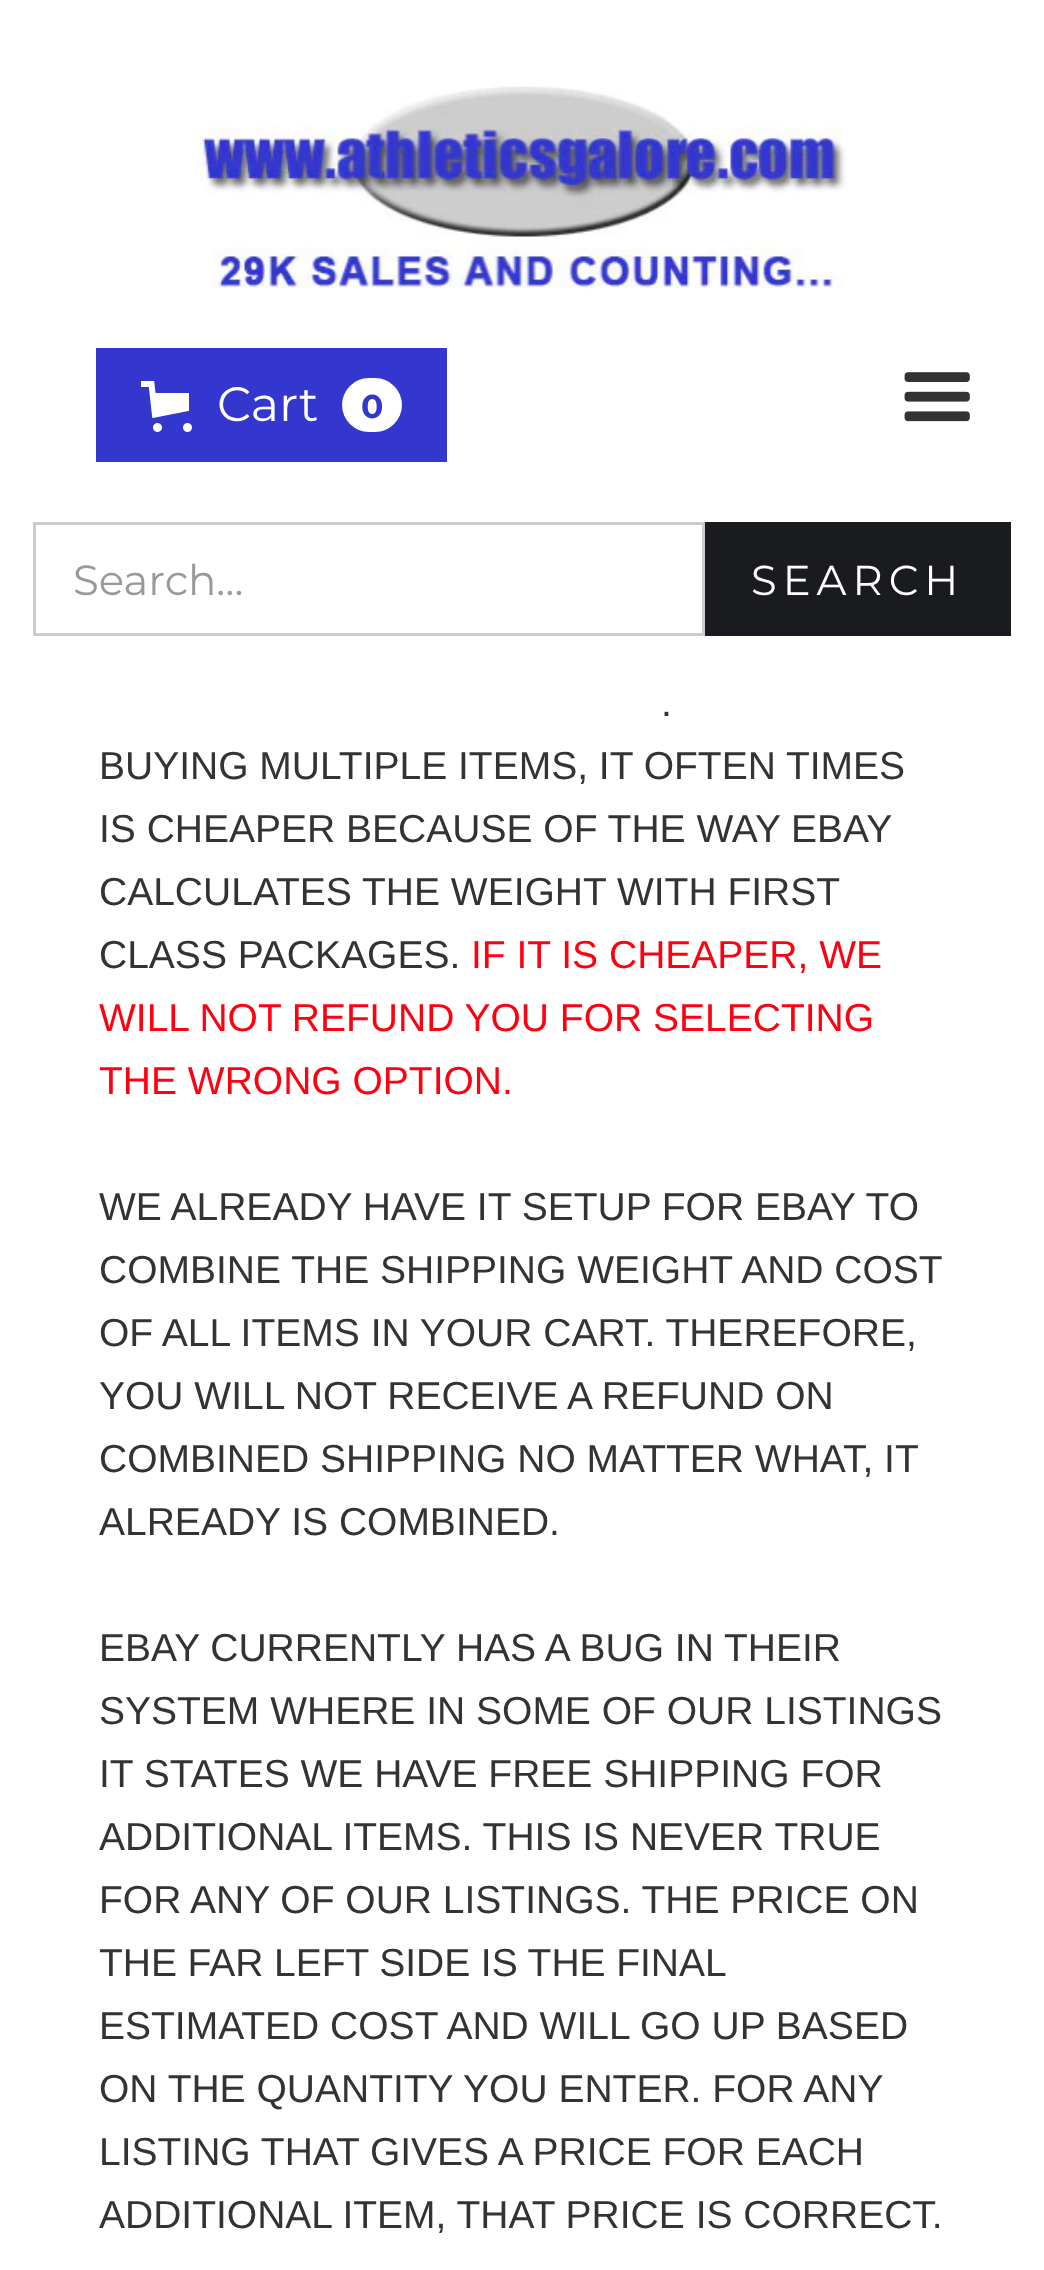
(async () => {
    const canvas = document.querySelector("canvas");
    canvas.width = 1044;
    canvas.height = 2270;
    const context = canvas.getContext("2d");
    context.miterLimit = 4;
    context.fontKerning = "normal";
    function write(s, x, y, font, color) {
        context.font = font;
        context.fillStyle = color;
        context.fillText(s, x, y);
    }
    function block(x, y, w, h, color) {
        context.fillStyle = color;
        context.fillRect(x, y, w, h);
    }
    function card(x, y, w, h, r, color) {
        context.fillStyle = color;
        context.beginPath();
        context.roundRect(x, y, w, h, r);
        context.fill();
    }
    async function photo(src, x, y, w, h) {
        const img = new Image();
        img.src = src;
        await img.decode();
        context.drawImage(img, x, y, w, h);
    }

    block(0, 0, 1044, 2270, "rgb(255, 255, 255)");
    await photo("media/1.png", 198, 86, 649, 203);
    block(96, 348, 351, 114, "rgb(52, 55, 206)");
    await photo("media/2.png", 141, 381, 51, 51);
    write("Cart", 217, 421, "48px Montserrat", "rgb(255, 255, 255)");
    card(342, 378, 60, 54, 27, "rgb(255, 255, 255)");
    write("0", 361, 418, "bold 33px Montserrat", "rgb(52, 55, 206)");
    await photo("media/3.png", 904, 372, 66, 50);
    context.strokeStyle = "rgb(204, 204, 204)";
    context.lineWidth = 3;
    context.strokeRect(34.5, 523.5, 669, 111);
    write("Search…", 73, 595, "42px Montserrat", "rgb(153, 153, 153)");
    block(705, 522, 306, 114, "rgb(26, 27, 31)");
    context.letterSpacing = "6px";
    write("SEARCH", 751, 595, "41.75px Montserrat", "rgb(255, 255, 255)");
    context.letterSpacing = "0px";
    write(".", 661, 716, "39px Liberation Sans", "rgb(51, 51, 51)");
    write("BUYING MULTIPLE ITEMS, IT OFTEN TIMES", 99, 779, "39px Liberation Sans", "rgb(51, 51, 51)");
    write("IS CHEAPER BECAUSE OF THE WAY EBAY", 99, 842, "39px Liberation Sans", "rgb(51, 51, 51)");
    write("CALCULATES THE WEIGHT WITH FIRST", 99, 905, "39px Liberation Sans", "rgb(51, 51, 51)");
    write("CLASS PACKAGES.", 99, 968, "39px Liberation Sans", "rgb(51, 51, 51)");
    write("IF IT IS CHEAPER, WE", 471, 968, "39px Liberation Sans", "rgb(255, 0, 17)");
    write("WILL NOT REFUND YOU FOR SELECTING", 99, 1031, "39px Liberation Sans", "rgb(255, 0, 17)");
    write("THE WRONG OPTION.", 99, 1094, "39px Liberation Sans", "rgb(255, 0, 17)");
    write("WE ALREADY HAVE IT SETUP FOR EBAY TO", 99, 1220, "39px Liberation Sans", "rgb(51, 51, 51)");
    write("COMBINE THE SHIPPING WEIGHT AND COST", 99, 1283, "39px Liberation Sans", "rgb(51, 51, 51)");
    write("OF ALL ITEMS IN YOUR CART. THEREFORE,", 99, 1346, "39px Liberation Sans", "rgb(51, 51, 51)");
    write("YOU WILL NOT RECEIVE A REFUND ON", 99, 1409, "39px Liberation Sans", "rgb(51, 51, 51)");
    write("COMBINED SHIPPING NO MATTER WHAT, IT", 99, 1472, "39px Liberation Sans", "rgb(51, 51, 51)");
    write("ALREADY IS COMBINED.", 99, 1535, "39px Liberation Sans", "rgb(51, 51, 51)");
    write("EBAY CURRENTLY HAS A BUG IN THEIR", 99, 1661, "39px Liberation Sans", "rgb(51, 51, 51)");
    write("SYSTEM WHERE IN SOME OF OUR LISTINGS", 99, 1724, "39px Liberation Sans", "rgb(51, 51, 51)");
    write("IT STATES WE HAVE FREE SHIPPING FOR", 99, 1787, "39px Liberation Sans", "rgb(51, 51, 51)");
    write("ADDITIONAL ITEMS. THIS IS NEVER TRUE", 99, 1850, "39px Liberation Sans", "rgb(51, 51, 51)");
    write("FOR ANY OF OUR LISTINGS. THE PRICE ON", 99, 1913, "39px Liberation Sans", "rgb(51, 51, 51)");
    context.wordSpacing = "-0.25px";
    write("THE FAR LEFT SIDE IS THE FINAL", 99, 1976, "39px Liberation Sans", "rgb(51, 51, 51)");
    context.wordSpacing = "0px";
    write("ESTIMATED COST AND WILL GO UP BASED", 99, 2039, "39px Liberation Sans", "rgb(51, 51, 51)");
    write("ON THE QUANTITY YOU ENTER. FOR ANY", 99, 2102, "39px Liberation Sans", "rgb(51, 51, 51)");
    write("LISTING THAT GIVES A PRICE FOR EACH", 99, 2165, "39px Liberation Sans", "rgb(51, 51, 51)");
    write("ADDITIONAL ITEM, THAT PRICE IS CORRECT.", 99, 2228, "39px Liberation Sans", "rgb(51, 51, 51)");
})();
